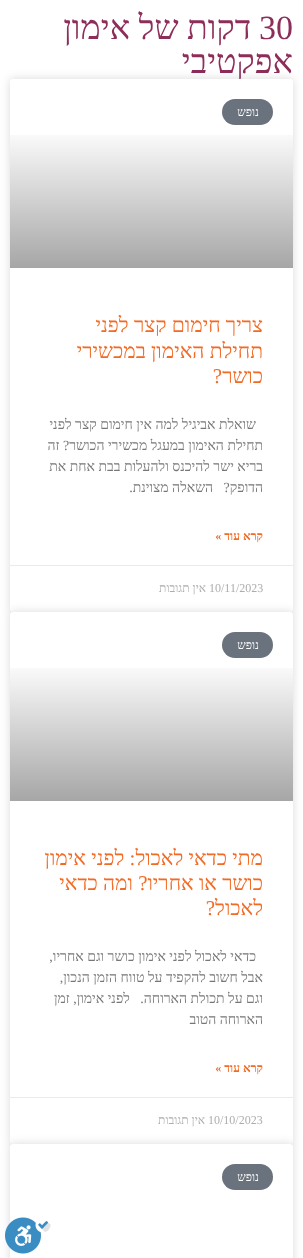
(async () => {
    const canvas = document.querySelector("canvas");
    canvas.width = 303;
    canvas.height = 1258;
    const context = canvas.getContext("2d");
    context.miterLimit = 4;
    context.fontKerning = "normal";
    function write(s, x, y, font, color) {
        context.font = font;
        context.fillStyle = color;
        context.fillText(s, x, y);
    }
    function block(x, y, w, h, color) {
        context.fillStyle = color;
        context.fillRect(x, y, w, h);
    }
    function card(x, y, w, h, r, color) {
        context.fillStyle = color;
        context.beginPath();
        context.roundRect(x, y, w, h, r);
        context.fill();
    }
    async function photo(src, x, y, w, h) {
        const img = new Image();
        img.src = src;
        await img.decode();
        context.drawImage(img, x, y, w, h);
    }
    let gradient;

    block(0, 0, 303, 1258, "rgb(255, 255, 255)");
    write("30", 259, 39, "34px Liberation Serif", "rgb(141, 45, 89)");
    context.direction = "rtl";
    write("דקות של אימון", 251, 39, "34px Liberation Serif", "rgb(141, 45, 89)");
    write("אפקטיבי", 293, 73, "34px Liberation Serif", "rgb(141, 45, 89)");
    context.fillStyle = "rgba(0, 0, 0, 0.15)";
    context.filter = "blur(5px)";
    context.beginPath();
    context.roundRect(10, 79, 283, 533, 3);
    context.fill();
    context.filter = "none";
    card(10, 79, 283, 533, 3, "rgb(255, 255, 255)");
    card(222, 99, 51, 26, 13, "rgb(105, 114, 125)");
    write("נופש", 259, 116, "12px Liberation Serif", "rgb(255, 255, 255)");
    gradient = context.createLinearGradient(152, 268, 152, 79);
    gradient.addColorStop(0, "rgba(0, 0, 0, 0.35)");
    gradient.addColorStop(0.75, "rgba(0, 0, 0, 0)");
    context.fillStyle = gradient;
    context.fillRect(10, 135, 283, 133);
    write("צריך חימום קצר לפני", 263, 332, "21px Liberation Serif", "rgb(242, 107, 37)");
    write("תחילת האימון במכשירי", 263, 358, "21px Liberation Serif", "rgb(242, 107, 37)");
    write("כושר?", 263, 383, "21px Liberation Serif", "rgb(242, 107, 37)");
    write("שואלת אביגיל למה אין חימום קצר לפני", 256, 429, "14px Liberation Serif", "rgb(119, 119, 119)");
    write("תחילת האימון במעגל מכשירי הכושר? זה", 263, 450, "14px Liberation Serif", "rgb(119, 119, 119)");
    write("בריא ישר להיכנס ולהעלות בבת אחת את", 263, 471, "14px Liberation Serif", "rgb(119, 119, 119)");
    write("הדופק?   השאלה מצוינת.", 263, 492, "14px Liberation Serif", "rgb(119, 119, 119)");
    write("קרא עוד »", 263, 540, "bold 12px Liberation Serif", "rgb(242, 107, 37)");
    block(10, 565, 283, 1, "rgb(234, 234, 234)");
    context.direction = "ltr";
    write("10/11/2023", 209, 592, "12px Liberation Serif", "rgb(173, 173, 173)");
    context.direction = "rtl";
    write("אין תגובות", 206, 592, "12px Liberation Serif", "rgb(173, 173, 173)");
    context.fillStyle = "rgba(0, 0, 0, 0.15)";
    context.filter = "blur(5px)";
    context.beginPath();
    context.roundRect(10, 612, 283, 532, 3);
    context.fill();
    context.filter = "none";
    card(10, 612, 283, 532, 3, "rgb(255, 255, 255)");
    card(222, 632, 51, 26, 13, "rgb(105, 114, 125)");
    write("נופש", 259, 649, "12px Liberation Serif", "rgb(255, 255, 255)");
    gradient = context.createLinearGradient(152, 801, 152, 612);
    gradient.addColorStop(0, "rgba(0, 0, 0, 0.35)");
    gradient.addColorStop(0.75, "rgba(0, 0, 0, 0)");
    context.fillStyle = gradient;
    context.fillRect(10, 668, 283, 133);
    write("מתי כדאי לאכול: לפני אימון", 263, 865, "21px Liberation Serif", "rgb(242, 107, 37)");
    write("כושר או אחריו? ומה כדאי", 263, 890, "21px Liberation Serif", "rgb(242, 107, 37)");
    write("לאכול?", 263, 915, "21px Liberation Serif", "rgb(242, 107, 37)");
    write("כדאי לאכול לפני אימון כושר וגם אחריו,", 256, 961, "14px Liberation Serif", "rgb(119, 119, 119)");
    write("אבל חשוב להקפיד על טווח הזמן הנכון,", 263, 982, "14px Liberation Serif", "rgb(119, 119, 119)");
    write("וגם על תכולת הארוחה.   לפני אימון, זמן", 263, 1003, "14px Liberation Serif", "rgb(119, 119, 119)");
    write("הארוחה הטוב", 263, 1024, "14px Liberation Serif", "rgb(119, 119, 119)");
    write("קרא עוד »", 263, 1072, "bold 12px Liberation Serif", "rgb(242, 107, 37)");
    block(10, 1097, 283, 1, "rgb(234, 234, 234)");
    context.direction = "ltr";
    write("10/10/2023", 208, 1124, "12px Liberation Serif", "rgb(173, 173, 173)");
    context.direction = "rtl";
    write("אין תגובות", 205, 1124, "12px Liberation Serif", "rgb(173, 173, 173)");
    context.fillStyle = "rgba(0, 0, 0, 0.15)";
    context.filter = "blur(5px)";
    context.beginPath();
    context.roundRect(10, 1144, 283, 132, 3);
    context.fill();
    context.filter = "none";
    card(10, 1144, 283, 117, 3, "rgb(255, 255, 255)");
    card(222, 1164, 51, 26, 13, "rgb(105, 114, 125)");
    write("נופש", 259, 1181, "12px Liberation Serif", "rgb(255, 255, 255)");
    await photo("media/1.png", 5, 1217, 46, 37);
})();
